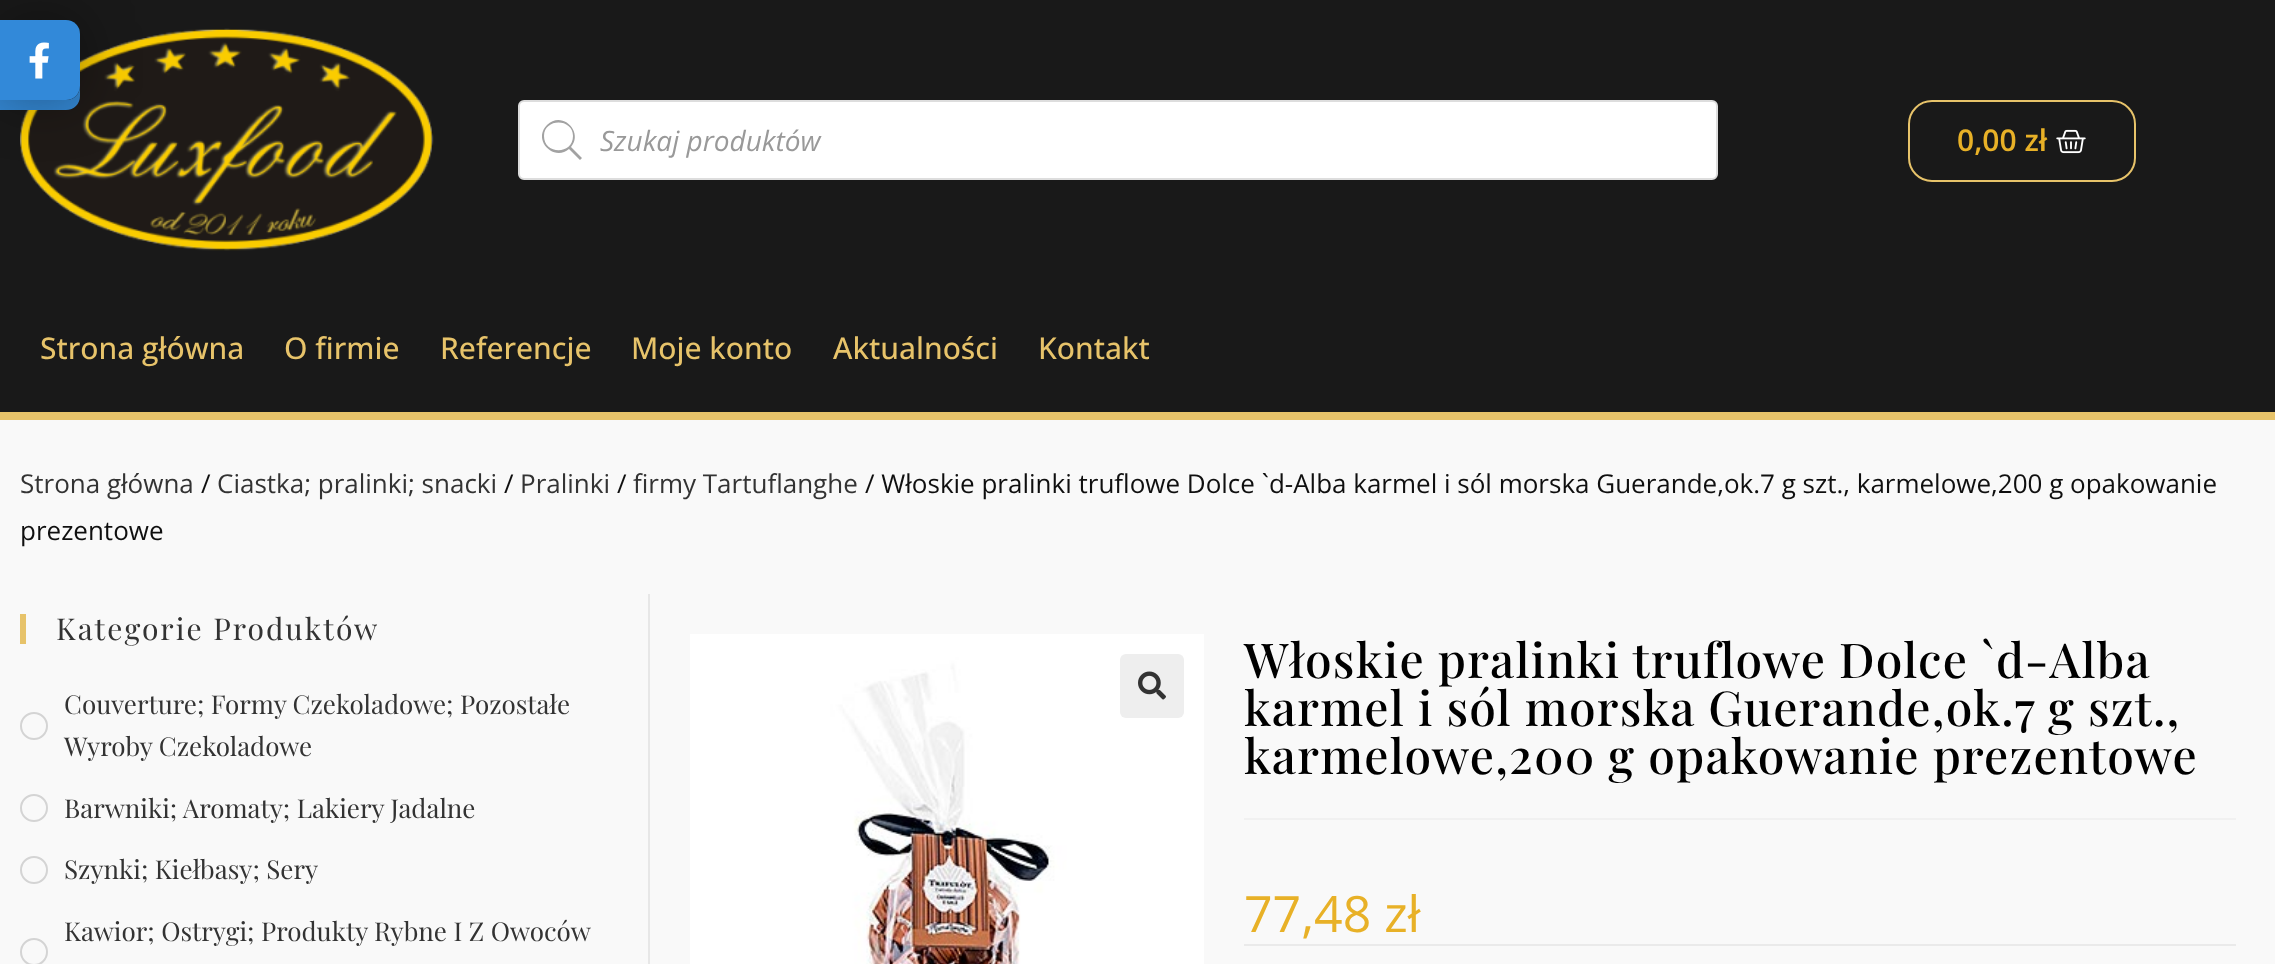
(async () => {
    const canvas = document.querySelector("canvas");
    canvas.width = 2275;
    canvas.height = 964;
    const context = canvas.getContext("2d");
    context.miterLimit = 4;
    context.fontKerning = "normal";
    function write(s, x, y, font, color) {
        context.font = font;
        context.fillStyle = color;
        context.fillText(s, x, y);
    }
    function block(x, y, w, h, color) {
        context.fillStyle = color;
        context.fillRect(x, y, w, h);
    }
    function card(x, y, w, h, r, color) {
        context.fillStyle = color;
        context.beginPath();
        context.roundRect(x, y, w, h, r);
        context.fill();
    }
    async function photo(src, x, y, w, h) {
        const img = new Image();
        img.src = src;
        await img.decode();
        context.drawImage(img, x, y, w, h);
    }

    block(0, 0, 2275, 964, "rgb(249, 249, 249)");
    block(0, 0, 2275, 412, "rgb(25, 25, 25)");
    await photo("media/2.png", 20, 28, 414, 223);
    context.fillStyle = "rgb(52, 135, 210)";
    context.beginPath();
    context.moveTo(0, 100);
    context.lineTo(0, 110);
    context.lineTo(66, 110);
    context.bezierCurveTo(74, 110, 80, 104, 80, 96);
    context.lineTo(80, 86);
    context.bezierCurveTo(80, 94, 74, 100, 66, 100);
    context.closePath();
    context.fill();
    context.fillStyle = "rgba(0, 0, 0, 0.38)";
    context.filter = "blur(28px)";
    context.beginPath();
    context.roundRect(0, 20, 80, 80, 14);
    context.fill();
    context.filter = "none";
    context.fillStyle = "rgb(50, 137, 217)";
    context.beginPath();
    context.roundRect(0, 20, 80, 80, [0, 14, 14, 0]);
    context.fill();
    await photo("media/1.png", 29, 42, 20, 37);
    context.fillStyle = "rgb(255, 255, 255)";
    context.beginPath();
    context.roundRect(519, 101, 1198, 78, 5);
    context.fill();
    context.strokeStyle = "rgb(221, 221, 221)";
    context.lineWidth = 2;
    context.stroke();
    context.fillStyle = "rgb(162, 162, 162)";
    context.beginPath();
    context.moveTo(582, 158);
    context.lineTo(571, 147);
    context.bezierCurveTo(584, 132, 562, 110, 547, 125);
    context.bezierCurveTo(532, 140, 554, 162, 569, 149);
    context.lineTo(580, 160);
    context.closePath();
    context.moveTo(544, 136);
    context.bezierCurveTo(544, 118, 573, 118, 573, 136);
    context.bezierCurveTo(573, 155, 544, 155, 544, 136);
    context.closePath();
    context.fill();
    write("Szukaj produktów", 600, 151, "italic 28px Open Sans", "rgb(153, 153, 153)");
    context.beginPath();
    context.roundRect(1909, 101, 226, 80, 23);
    context.strokeStyle = "rgb(231, 195, 106)";
    context.stroke();
    write("0,00 zł", 1957, 151, "600 30px Open Sans", "rgb(232, 177, 39)");
    await photo("media/3.png", 2056, 129, 30, 25);
    block(0, 412, 2275, 8, "rgb(231, 195, 106)");
    write("Strona główna", 40, 359, "500 30px Open Sans", "rgb(231, 195, 106)");
    write("O firmie", 284, 359, "500 30px Open Sans", "rgb(231, 195, 106)");
    write("Referencje", 440, 359, "500 30px Open Sans", "rgb(231, 195, 106)");
    write("Moje konto", 631, 359, "500 30px Open Sans", "rgb(231, 195, 106)");
    write("Aktualności", 833, 359, "500 30px Open Sans", "rgb(231, 195, 106)");
    write("Kontakt", 1038, 359, "500 30px Open Sans", "rgb(231, 195, 106)");
    write("Strona główna", 20, 493, "26px Open Sans", "rgb(51, 51, 51)");
    write("/", 201, 493, "26px Open Sans", "rgb(15, 15, 15)");
    write("Ciastka; pralinki; snacki", 217, 493, "26px Open Sans", "rgb(51, 51, 51)");
    write("/", 504, 493, "26px Open Sans", "rgb(15, 15, 15)");
    write("Pralinki", 520, 493, "26px Open Sans", "rgb(51, 51, 51)");
    write("/", 617, 493, "26px Open Sans", "rgb(15, 15, 15)");
    write("firmy Tartuflanghe", 633, 493, "26px Open Sans", "rgb(51, 51, 51)");
    write("/ Włoskie pralinki truflowe Dolce `d-Alba karmel i sól morska Guerande,ok.7 g szt., karmelowe,200 g opakowanie", 865, 493, "26px Open Sans", "rgb(15, 15, 15)");
    write("prezentowe", 20, 540, "26px Open Sans", "rgb(15, 15, 15)");
    block(648, 594, 2, 370, "rgb(231, 231, 231)");
    block(20, 614, 6, 30, "rgb(231, 195, 106)");
    context.letterSpacing = "2px";
    write("Kategorie Produktów", 56, 640, "30px Playfair Display", "rgb(51, 51, 51)");
    context.letterSpacing = "0px";
    write("Couverture; Formy Czekoladowe; Pozostałe", 64, 714, "26px Playfair Display", "rgb(51, 51, 51)");
    context.beginPath();
    context.arc(34, 726, 13, 0, Math.PI * 2);
    context.strokeStyle = "rgb(212, 212, 212)";
    context.stroke();
    write("Wyroby Czekoladowe", 64, 756, "26px Playfair Display", "rgb(51, 51, 51)");
    context.beginPath();
    context.arc(34, 808, 13, 0, Math.PI * 2);
    context.stroke();
    write("Barwniki; Aromaty; Lakiery Jadalne", 64, 818, "26px Playfair Display", "rgb(51, 51, 51)");
    context.beginPath();
    context.arc(34, 870, 13, 0, Math.PI * 2);
    context.stroke();
    write("Szynki; Kiełbasy; Sery", 64, 879, "26px Playfair Display", "rgb(51, 51, 51)");
    write("Kawior; Ostrygi; Produkty Rybne I Z Owoców", 64, 941, "26px Playfair Display", "rgb(51, 51, 51)");
    context.beginPath();
    context.arc(34, 952, 13, 0, Math.PI * 2);
    context.stroke();
    await photo("media/4.png", 690, 634, 514, 330);
    card(1120, 654, 64, 64, 6, "rgb(238, 238, 238)");
    await photo("media/5.png", 1138, 671, 28, 29);
    block(1244, 818, 992, 2, "rgb(241, 241, 241)");
    context.letterSpacing = "1.2px";
    write("Włoskie pralinki truflowe Dolce `d-Alba", 1244, 678, "500 48px Playfair Display", "rgb(0, 0, 0)");
    write("karmel i sól morska Guerande,ok.7 g szt.,", 1244, 726, "500 48px Playfair Display", "rgb(0, 0, 0)");
    write("karmelowe,200 g opakowanie prezentowe", 1244, 774, "500 48px Playfair Display", "rgb(0, 0, 0)");
    context.letterSpacing = "0px";
    write("77,48 zł", 1244, 932, "50px Open Sans", "rgb(232, 177, 39)");
    block(1244, 944, 992, 2, "rgb(234, 234, 234)");
})();
